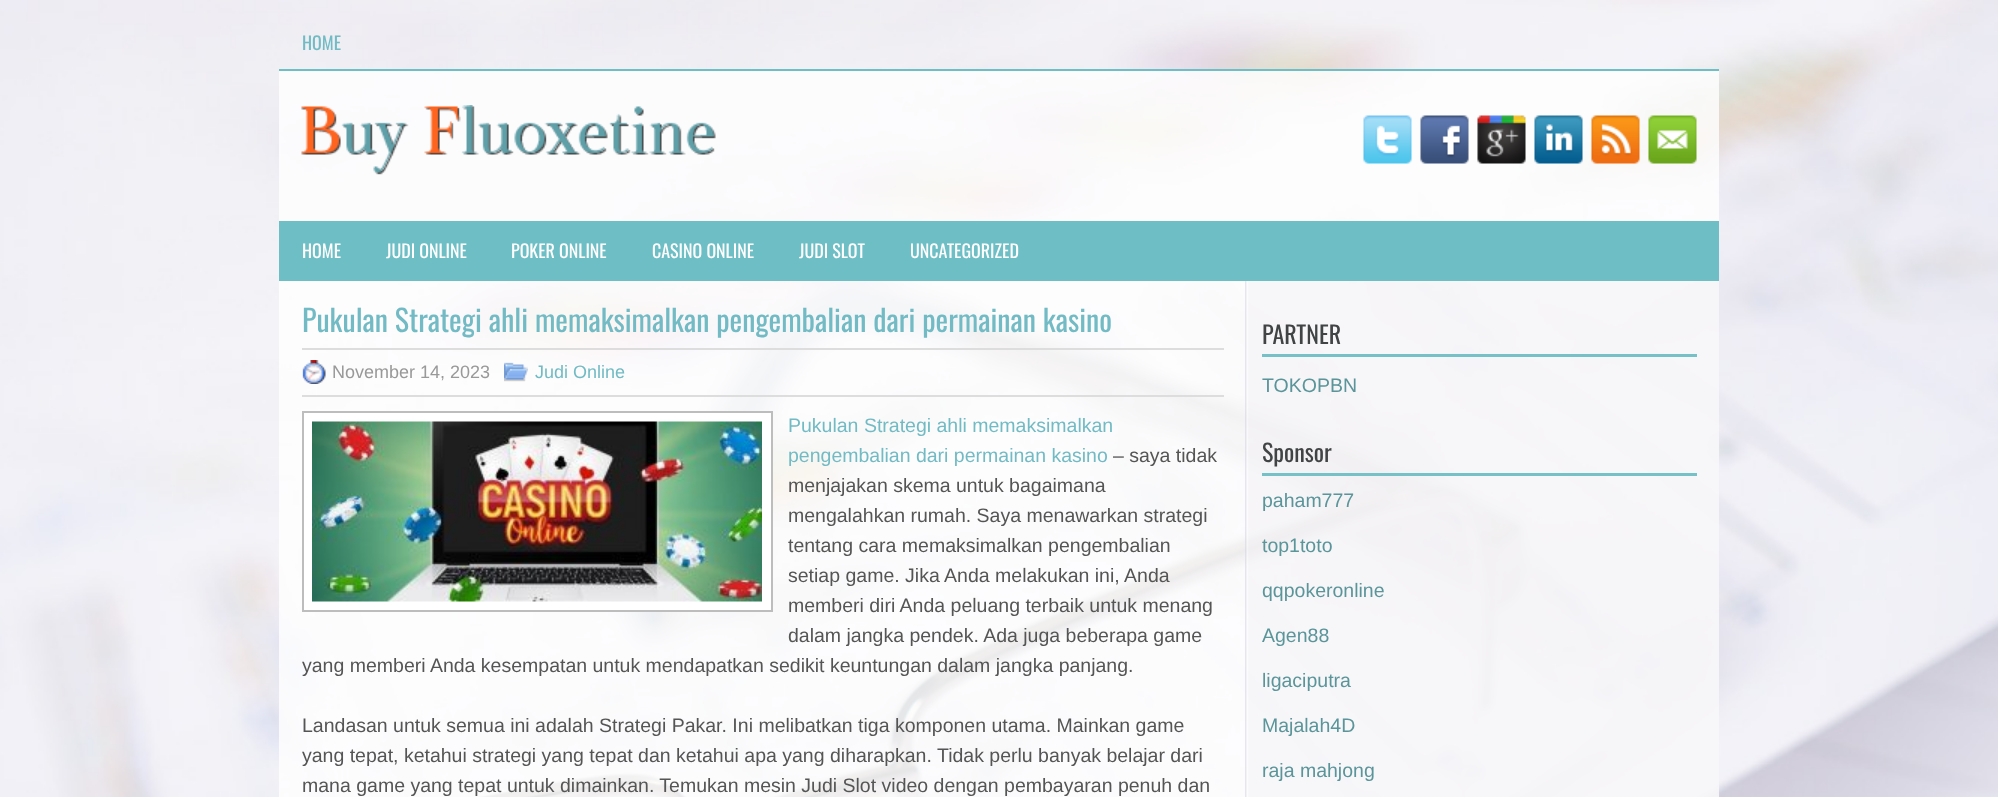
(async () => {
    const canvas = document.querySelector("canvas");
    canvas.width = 1998;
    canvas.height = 797;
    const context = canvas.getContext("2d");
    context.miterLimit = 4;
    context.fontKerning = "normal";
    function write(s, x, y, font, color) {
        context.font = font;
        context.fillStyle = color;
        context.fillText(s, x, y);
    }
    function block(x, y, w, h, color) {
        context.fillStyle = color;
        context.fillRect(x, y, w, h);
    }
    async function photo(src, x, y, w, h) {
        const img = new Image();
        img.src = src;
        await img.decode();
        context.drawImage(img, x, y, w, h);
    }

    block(0, 0, 1998, 797, "rgb(255, 255, 255)");
    await photo("media/1.png", 0, 0, 1998, 797);
    block(279, 69, 1440, 2, "rgb(110, 190, 197)");
    write("HOME", 302, 50, "18px Oswald", "rgb(114, 187, 196)");
    block(279, 71, 1440, 150, "rgba(255, 255, 255, 0.8)");
    await photo("media/2.png", 301, 105, 415, 70);
    await photo("media/3.png", 1363, 115, 49, 49);
    await photo("media/4.png", 1420, 115, 49, 49);
    await photo("media/5.png", 1477, 115, 49, 49);
    await photo("media/6.png", 1534, 115, 49, 49);
    await photo("media/7.png", 1591, 115, 49, 49);
    await photo("media/8.png", 1648, 115, 49, 49);
    block(279, 221, 1440, 60, "rgb(110, 190, 197)");
    write("HOME", 302, 258, "18px Oswald", "rgb(255, 255, 255)");
    write("JUDI ONLINE", 386, 258, "18px Oswald", "rgb(255, 255, 255)");
    write("POKER ONLINE", 511, 258, "18px Oswald", "rgb(255, 255, 255)");
    write("CASINO ONLINE", 652, 258, "18px Oswald", "rgb(255, 255, 255)");
    write("JUDI SLOT", 799, 258, "18px Oswald", "rgb(255, 255, 255)");
    write("UNCATEGORIZED", 910, 258, "18px Oswald", "rgb(255, 255, 255)");
    await photo("media/9.png", 279, 281, 1440, 516);
    write("Pukulan Strategi ahli memaksimalkan pengembalian dari permainan kasino", 302, 332, "30px Oswald", "rgb(114, 187, 196)");
    block(302, 348, 922, 2, "rgb(221, 221, 221)");
    block(302, 395, 922, 2, "rgb(221, 221, 221)");
    await photo("media/10.png", 302, 360, 24, 24);
    write("November 14, 2023", 332, 378, "18px Liberation Sans", "rgb(153, 153, 153)");
    await photo("media/11.png", 504, 362, 24, 20);
    write("Judi Online", 535, 378, "18px Liberation Sans", "rgb(114, 187, 196)");
    context.fillStyle = "rgb(255, 255, 255)";
    context.beginPath();
    context.rect(303, 412, 469, 199);
    context.fill();
    context.strokeStyle = "rgb(189, 189, 189)";
    context.lineWidth = 2;
    context.stroke();
    await photo("media/12.png", 312, 421, 450, 181);
    write("Pukulan Strategi ahli memaksimalkan", 788, 432, "19.5px Liberation Sans", "rgb(114, 187, 196)");
    write("pengembalian dari permainan kasino", 788, 462, "19.5px Liberation Sans", "rgb(114, 187, 196)");
    write("– saya tidak", 1113, 462, "19.5px Liberation Sans", "rgb(85, 85, 85)");
    write("menjajakan skema untuk bagaimana", 788, 492, "19.5px Liberation Sans", "rgb(85, 85, 85)");
    write("mengalahkan rumah. Saya menawarkan strategi", 788, 522, "19.5px Liberation Sans", "rgb(85, 85, 85)");
    write("tentang cara memaksimalkan pengembalian", 788, 552, "19.5px Liberation Sans", "rgb(85, 85, 85)");
    write("setiap game. Jika Anda melakukan ini, Anda", 788, 582, "19.5px Liberation Sans", "rgb(85, 85, 85)");
    write("memberi diri Anda peluang terbaik untuk menang", 788, 612, "19.5px Liberation Sans", "rgb(85, 85, 85)");
    write("dalam jangka pendek. Ada juga beberapa game", 788, 642, "19.5px Liberation Sans", "rgb(85, 85, 85)");
    write("yang memberi Anda kesempatan untuk mendapatkan sedikit keuntungan dalam jangka panjang.", 302, 672, "19.5px Liberation Sans", "rgb(85, 85, 85)");
    write("Landasan untuk semua ini adalah Strategi Pakar. Ini melibatkan tiga komponen utama. Mainkan game", 302, 732, "19.5px Liberation Sans", "rgb(85, 85, 85)");
    write("yang tepat, ketahui strategi yang tepat dan ketahui apa yang diharapkan. Tidak perlu banyak belajar dari", 302, 762, "19.5px Liberation Sans", "rgb(85, 85, 85)");
    write("mana game yang tepat untuk dimainkan. Temukan mesin Judi Slot video dengan pembayaran penuh dan", 302, 792, "19.5px Liberation Sans", "rgb(85, 85, 85)");
    block(1262, 354, 435, 3, "rgb(117, 193, 199)");
    write("PARTNER", 1262, 344, "24px Oswald", "rgb(65, 68, 69)");
    write("TOKOPBN", 1262, 392, "19.5px Liberation Sans", "rgb(90, 149, 154)");
    block(1262, 473, 435, 3, "rgb(117, 193, 199)");
    write("Sponsor", 1262, 462, "24px Oswald", "rgb(65, 68, 69)");
    write("paham777", 1262, 507, "19.5px Liberation Sans", "rgb(90, 149, 154)");
    write("top1toto", 1262, 552, "19.5px Liberation Sans", "rgb(90, 149, 154)");
    write("qqpokeronline", 1262, 597, "19.5px Liberation Sans", "rgb(90, 149, 154)");
    write("Agen88", 1262, 642, "19.5px Liberation Sans", "rgb(90, 149, 154)");
    write("ligaciputra", 1262, 687, "19.5px Liberation Sans", "rgb(90, 149, 154)");
    write("Majalah4D", 1262, 732, "19.5px Liberation Sans", "rgb(90, 149, 154)");
    write("raja mahjong", 1262, 777, "19.5px Liberation Sans", "rgb(90, 149, 154)");
})();
